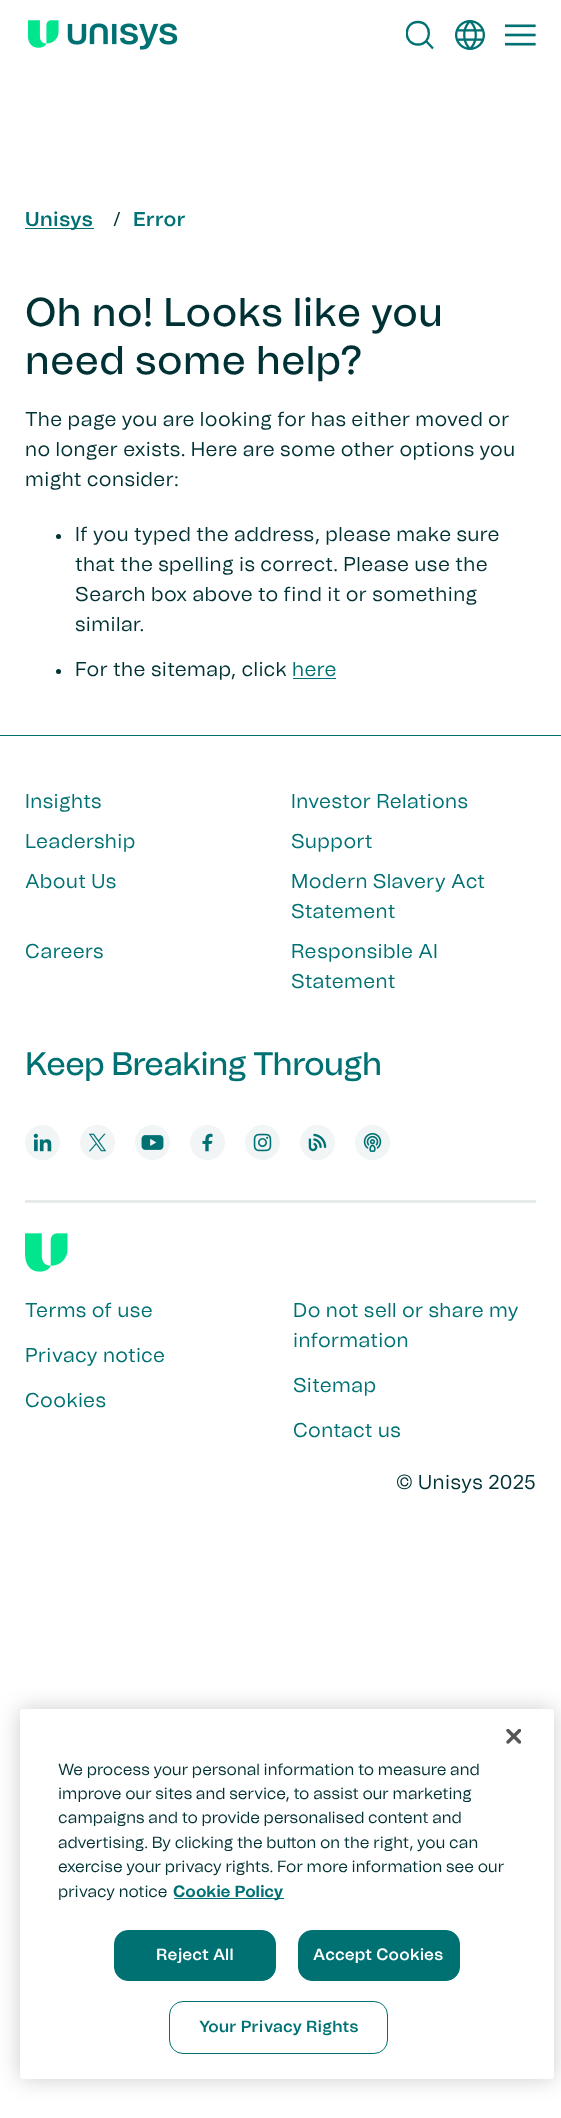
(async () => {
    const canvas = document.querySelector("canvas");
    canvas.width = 561;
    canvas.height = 2118;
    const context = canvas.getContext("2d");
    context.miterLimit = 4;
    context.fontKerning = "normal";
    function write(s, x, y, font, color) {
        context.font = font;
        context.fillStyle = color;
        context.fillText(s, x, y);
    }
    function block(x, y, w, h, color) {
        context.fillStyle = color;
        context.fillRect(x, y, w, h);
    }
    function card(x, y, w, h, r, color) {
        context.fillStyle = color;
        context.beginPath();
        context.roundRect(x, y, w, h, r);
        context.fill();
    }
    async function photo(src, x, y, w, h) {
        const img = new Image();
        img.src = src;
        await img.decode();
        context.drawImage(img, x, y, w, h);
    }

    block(0, 0, 561, 2118, "rgb(255, 255, 255)");
    await photo("media/1.png", 28, 20, 150, 30);
    context.save();
    context.beginPath();
    context.rect(406, 20, 28, 30);
    context.clip();
    context.beginPath();
    context.moveTo(418, 44.5);
    context.bezierCurveTo(432.5, 44.5, 432.5, 22, 418, 22);
    context.bezierCurveTo(403, 22, 403, 44.5, 418, 44.5);
    context.closePath();
    context.moveTo(426, 41);
    context.lineTo(433, 48.5);
    context.strokeStyle = "rgb(0, 113, 115)";
    context.lineWidth = 2.3;
    context.stroke();
    context.restore();
    await photo("media/2.png", 455, 20, 30, 30);
    await photo("media/3.png", 505, 24, 31, 22);
    block(25, 228, 69, 1, "rgb(0, 113, 115)");
    context.letterSpacing = "0.4px";
    write("Unisys", 25, 226, "600 20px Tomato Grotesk", "rgb(0, 113, 115)");
    write("/", 113, 226, "20px Tomato Grotesk", "rgb(0, 49, 52)");
    write("Error", 133, 226, "600 20px Tomato Grotesk", "rgb(0, 113, 115)");
    write("Oh no! Looks like you", 25, 326, "500 40px Tomato Grotesk", "rgb(0, 49, 52)");
    write("need some help?", 25, 374, "500 40px Tomato Grotesk", "rgb(0, 49, 52)");
    write("The page you are looking for has either moved or", 25, 426, "20px Tomato Grotesk", "rgb(0, 49, 52)");
    write("no longer exists. Here are some other options you", 25, 456, "20px Tomato Grotesk", "rgb(0, 49, 52)");
    write("might consider:", 25, 486, "20px Tomato Grotesk", "rgb(0, 49, 52)");
    context.beginPath();
    context.arc(58.5, 536.5, 2.5, 0, Math.PI * 2);
    context.fill();
    write("If you typed the address, please make sure", 75, 541, "20px Tomato Grotesk", "rgb(0, 49, 52)");
    write("that the spelling is correct. Please use the", 75, 571, "20px Tomato Grotesk", "rgb(0, 49, 52)");
    write("Search box above to find it or something", 75, 601, "20px Tomato Grotesk", "rgb(0, 49, 52)");
    write("similar.", 75, 631, "20px Tomato Grotesk", "rgb(0, 49, 52)");
    context.beginPath();
    context.arc(58.5, 671.5, 2.5, 0, Math.PI * 2);
    context.fill();
    write("For the sitemap, click", 75, 676, "20px Tomato Grotesk", "rgb(0, 49, 52)");
    write("here", 292, 676, "20px Tomato Grotesk", "rgb(0, 113, 115)");
    block(293, 678, 43, 1, "rgb(0, 113, 115)");
    block(0, 735, 561, 1, "rgb(0, 113, 115)");
    write("Insights", 25, 808, "20px Tomato Grotesk", "rgb(0, 113, 115)");
    write("Investor Relations", 291, 808, "20px Tomato Grotesk", "rgb(0, 113, 115)");
    write("Leadership", 25, 848, "20px Tomato Grotesk", "rgb(0, 113, 115)");
    write("Support", 291, 848, "20px Tomato Grotesk", "rgb(0, 113, 115)");
    write("About Us", 25, 888, "20px Tomato Grotesk", "rgb(0, 113, 115)");
    write("Modern Slavery Act", 291, 888, "20px Tomato Grotesk", "rgb(0, 113, 115)");
    write("Statement", 291, 918, "20px Tomato Grotesk", "rgb(0, 113, 115)");
    write("Careers", 25, 958, "20px Tomato Grotesk", "rgb(0, 113, 115)");
    write("Responsible AI", 291, 958, "20px Tomato Grotesk", "rgb(0, 113, 115)");
    write("Statement", 291, 988, "20px Tomato Grotesk", "rgb(0, 113, 115)");
    context.letterSpacing = "-0.65px";
    write("Keep Breaking Through", 25, 1075, "500 32.5px Tomato Grotesk", "rgb(0, 113, 115)");
    context.fillStyle = "rgb(242, 245, 245)";
    context.beginPath();
    context.arc(42.5, 1142.5, 17.5, 0, Math.PI * 2);
    context.fill();
    await photo("media/4.png", 33, 1133, 19, 19);
    context.beginPath();
    context.arc(97.5, 1142.5, 17.5, 0, Math.PI * 2);
    context.fill();
    await photo("media/5.png", 88, 1133, 19, 19);
    context.beginPath();
    context.arc(152.5, 1142.5, 17.5, 0, Math.PI * 2);
    context.fill();
    await photo("media/6.png", 141, 1135, 23, 15);
    context.beginPath();
    context.arc(207.5, 1142.5, 17.5, 0, Math.PI * 2);
    context.fill();
    await photo("media/7.png", 202, 1133, 11, 19);
    context.beginPath();
    context.arc(262.5, 1142.5, 17.5, 0, Math.PI * 2);
    context.fill();
    await photo("media/8.png", 253, 1133, 19, 19);
    context.beginPath();
    context.arc(317.5, 1142.5, 17.5, 0, Math.PI * 2);
    context.fill();
    await photo("media/9.png", 308, 1133, 19, 19);
    context.beginPath();
    context.arc(372.5, 1142.5, 17.5, 0, Math.PI * 2);
    context.fill();
    await photo("media/10.png", 363, 1133, 19, 19);
    block(25, 1200, 511, 3, "rgb(229, 234, 235)");
    await photo("media/11.png", 25, 1233, 43, 39);
    context.letterSpacing = "0.4px";
    write("Terms of use", 25, 1317, "20px Tomato Grotesk", "rgb(0, 113, 115)");
    write("Privacy notice", 25, 1362, "20px Tomato Grotesk", "rgb(0, 113, 115)");
    write("Cookies", 25, 1407, "20px Tomato Grotesk", "rgb(0, 113, 115)");
    write("Do not sell or share my", 293, 1317, "20px Tomato Grotesk", "rgb(0, 113, 115)");
    write("information", 293, 1347, "20px Tomato Grotesk", "rgb(0, 113, 115)");
    write("Sitemap", 293, 1392, "20px Tomato Grotesk", "rgb(0, 113, 115)");
    write("Contact us", 293, 1437, "20px Tomato Grotesk", "rgb(0, 113, 115)");
    write("© Unisys 2025", 396, 1489, "20px Tomato Grotesk", "rgb(0, 49, 52)");
    context.fillStyle = "rgba(0, 0, 0, 0.2)";
    context.filter = "blur(11px)";
    context.beginPath();
    context.roundRect(20, 1709, 534, 370, 3);
    context.fill();
    context.filter = "none";
    card(20, 1709, 534, 370, 3, "rgb(255, 255, 255)");
    await photo("media/12.png", 506, 1729, 15, 15);
    context.letterSpacing = "0px";
    write("We process your personal information to measure and", 58, 1775, "16.25px Tomato Grotesk", "rgb(0, 49, 52)");
    write("improve our sites and service, to assist our marketing", 58, 1799, "16.25px Tomato Grotesk", "rgb(0, 49, 52)");
    write("campaigns and to provide personalised content and", 58, 1823, "16.25px Tomato Grotesk", "rgb(0, 49, 52)");
    write("advertising. By clicking the button on the right, you can", 58, 1848, "16.25px Tomato Grotesk", "rgb(0, 49, 52)");
    write("exercise your privacy rights. For more information see our", 58, 1872, "16.25px Tomato Grotesk", "rgb(0, 49, 52)");
    write("privacy notice", 58, 1897, "16.25px Tomato Grotesk", "rgb(0, 49, 52)");
    block(174, 1898, 110, 1, "rgb(0, 113, 115)");
    write("Cookie Policy", 173, 1897, "bold 16.25px Tomato Grotesk", "rgb(0, 113, 115)");
    context.beginPath();
    context.roundRect(114.5, 1930.5, 161, 50, 13.5);
    context.fill();
    context.strokeStyle = "rgb(0, 113, 115)";
    context.stroke();
    context.letterSpacing = "0.2px";
    write("Reject All", 156, 1960, "600 16.25px Tomato Grotesk", "rgb(255, 255, 255)");
    context.fillStyle = "rgb(0, 113, 115)";
    context.beginPath();
    context.roundRect(298.5, 1930.5, 161, 50, 13.5);
    context.fill();
    context.stroke();
    write("Accept Cookies", 313, 1960, "600 16.25px Tomato Grotesk", "rgb(255, 255, 255)");
    context.beginPath();
    context.roundRect(169.5, 2001.5, 218, 52, 13.5);
    context.stroke();
    write("Your Privacy Rights", 199, 2032, "600 16.25px Tomato Grotesk", "rgb(0, 113, 115)");
})();
